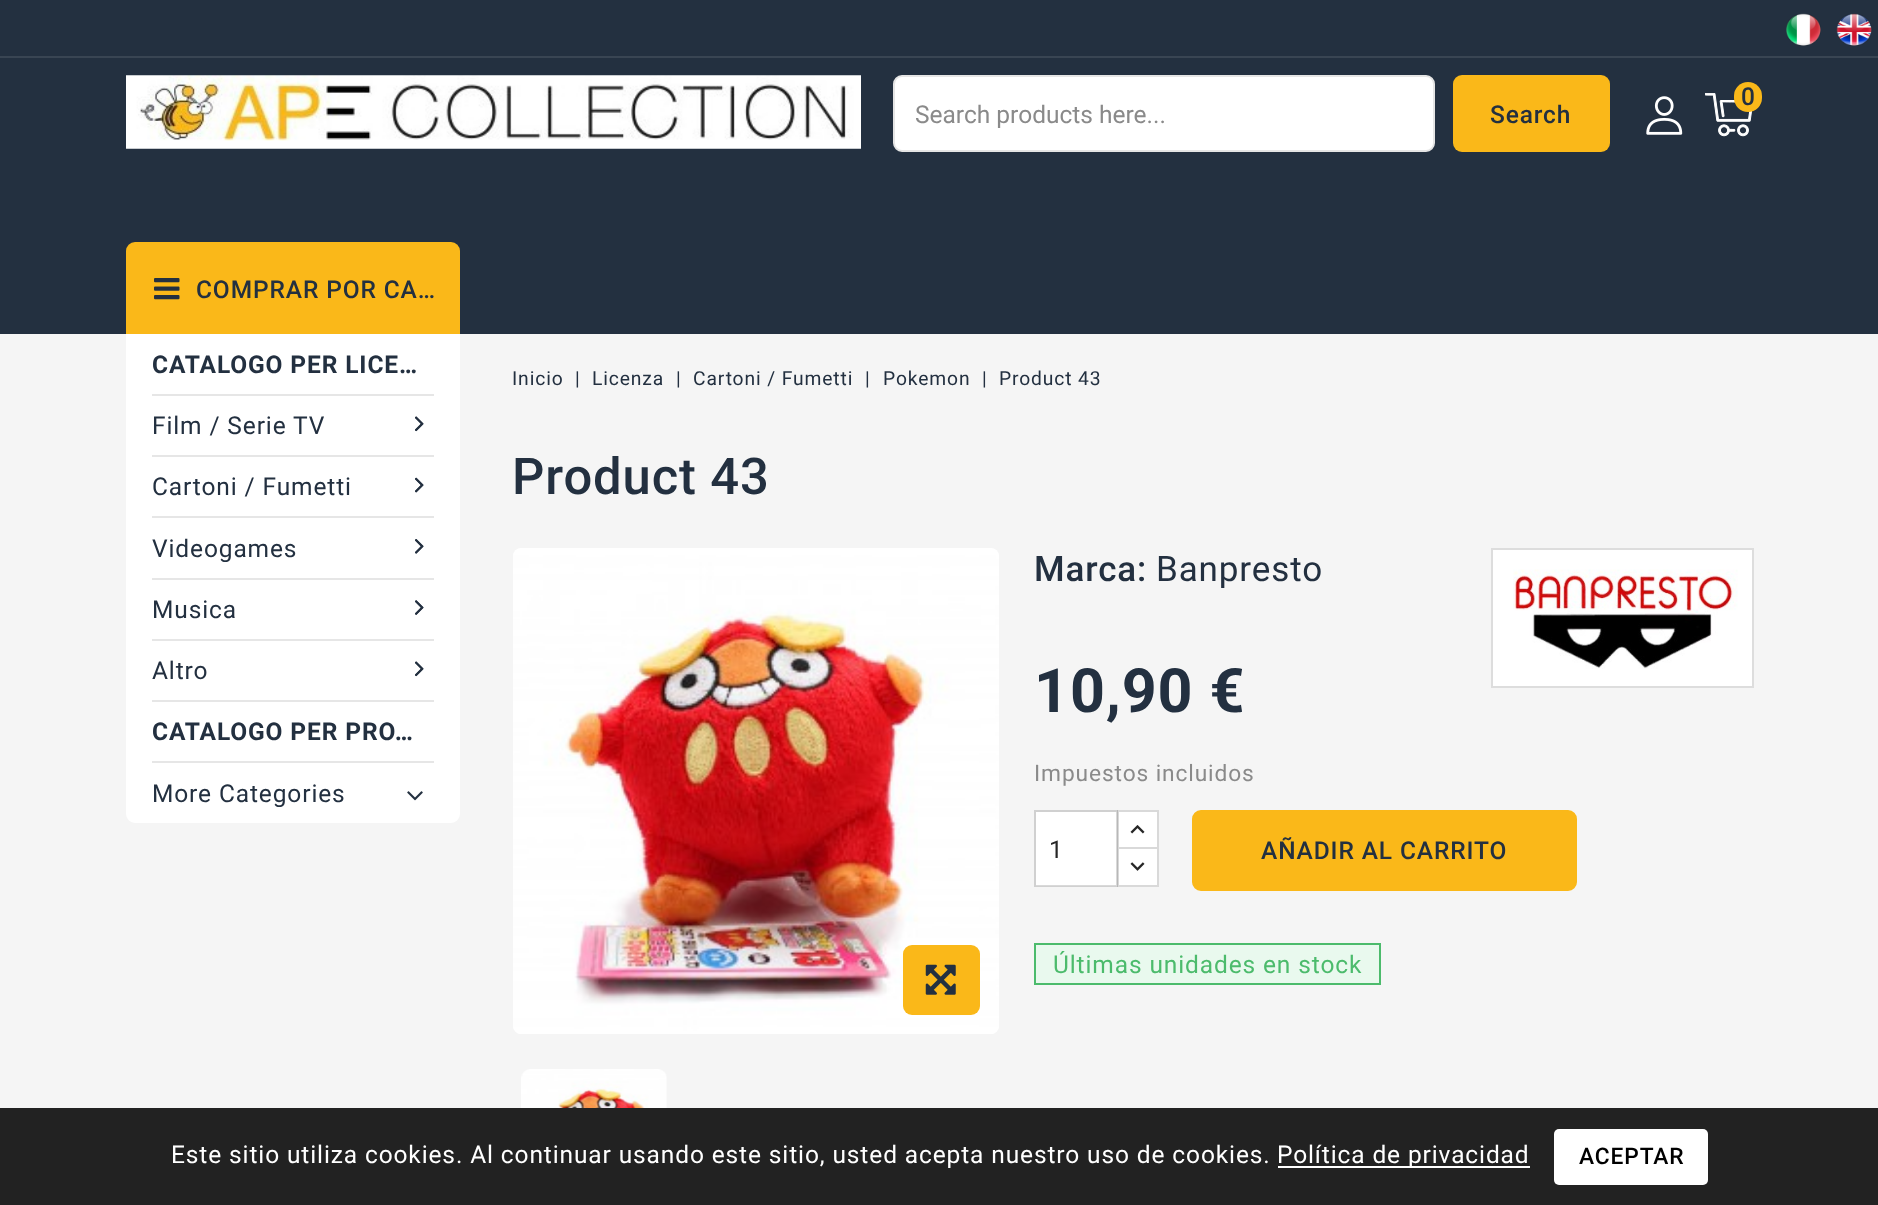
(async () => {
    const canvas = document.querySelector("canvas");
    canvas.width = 1878;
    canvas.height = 1205;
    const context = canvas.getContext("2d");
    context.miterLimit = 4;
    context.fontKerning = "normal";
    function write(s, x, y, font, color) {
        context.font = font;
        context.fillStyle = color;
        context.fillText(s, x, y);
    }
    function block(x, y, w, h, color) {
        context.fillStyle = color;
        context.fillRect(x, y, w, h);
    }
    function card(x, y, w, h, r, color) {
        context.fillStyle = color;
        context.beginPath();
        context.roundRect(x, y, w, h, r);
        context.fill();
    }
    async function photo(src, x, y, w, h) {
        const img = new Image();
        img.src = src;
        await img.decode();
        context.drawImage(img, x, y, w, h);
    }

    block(0, 0, 1878, 1205, "rgb(245, 245, 245)");
    block(0, 0, 1878, 334, "rgb(35, 48, 64)");
    block(0, 56, 1878, 2, "rgb(57, 69, 83)");
    await photo("media/1.png", 1786, 13, 35, 33);
    await photo("media/2.png", 1836, 13, 36, 33);
    await photo("media/3.png", 126, 75, 735, 74);
    context.fillStyle = "rgb(255, 255, 255)";
    context.beginPath();
    context.roundRect(894, 76, 540, 75, 8);
    context.fill();
    context.strokeStyle = "rgb(229, 229, 229)";
    context.lineWidth = 2;
    context.stroke();
    write("Search products here...", 915, 123, "24.5px Roboto", "rgb(138, 138, 138)");
    card(1453, 75, 157, 77, 9, "rgb(250, 184, 25)");
    context.letterSpacing = "0.88px";
    write("Search", 1490, 123, "500 24.5px Roboto", "rgb(35, 48, 64)");
    await photo("media/4.png", 1646, 96, 37, 39);
    await photo("media/5.png", 1705, 93, 47, 44);
    card(1734, 82, 28, 30, 14, "rgb(250, 184, 25)");
    context.letterSpacing = "0px";
    write("0", 1741, 105, "500 24.5px Roboto", "rgb(35, 48, 64)");
    context.fillStyle = "rgb(250, 184, 25)";
    context.beginPath();
    context.roundRect(126, 242, 334, 92, [9, 9, 0, 0]);
    context.fill();
    await photo("media/6.png", 154, 278, 26, 22);
    context.letterSpacing = "0.88px";
    write("COMPRAR POR CA…", 196, 298, "500 24.5px Roboto", "rgb(35, 48, 64)");
    context.fillStyle = "rgb(255, 255, 255)";
    context.beginPath();
    context.roundRect(126, 334, 334, 489, [0, 0, 9, 9]);
    context.fill();
    block(152, 394, 282, 2, "rgb(230, 230, 230)");
    write("CATALOGO PER LICE…", 152, 373, "bold 24.5px Roboto", "rgb(35, 48, 64)");
    block(152, 455, 282, 2, "rgb(230, 230, 230)");
    write("Film / Serie TV", 152, 434, "24.5px Roboto", "rgb(35, 48, 64)");
    await photo("media/7.png", 415, 416, 9, 16);
    await photo("media/8.png", 415, 416, 9, 16);
    block(152, 516, 282, 2, "rgb(230, 230, 230)");
    write("Cartoni / Fumetti", 152, 495, "24.5px Roboto", "rgb(35, 48, 64)");
    await photo("media/9.png", 415, 477, 9, 16);
    await photo("media/10.png", 415, 477, 9, 16);
    block(152, 578, 282, 2, "rgb(230, 230, 230)");
    write("Videogames", 152, 557, "24.5px Roboto", "rgb(35, 48, 64)");
    await photo("media/11.png", 415, 539, 9, 15);
    await photo("media/12.png", 415, 539, 9, 15);
    block(152, 639, 282, 2, "rgb(230, 230, 230)");
    write("Musica", 152, 618, "24.5px Roboto", "rgb(35, 48, 64)");
    await photo("media/13.png", 415, 600, 9, 15);
    await photo("media/14.png", 415, 600, 9, 15);
    block(152, 700, 282, 2, "rgb(230, 230, 230)");
    write("Altro", 152, 679, "24.5px Roboto", "rgb(35, 48, 64)");
    await photo("media/7.png", 415, 661, 9, 16);
    await photo("media/8.png", 415, 661, 9, 16);
    block(152, 761, 282, 2, "rgb(230, 230, 230)");
    write("CATALOGO PER PRO…", 152, 740, "bold 24.5px Roboto", "rgb(35, 48, 64)");
    write("More Categories", 152, 802, "24.5px Roboto", "rgb(35, 48, 64)");
    await photo("media/15.png", 407, 791, 16, 10);
    write("Inicio", 512, 385, "19.25px Roboto", "rgb(35, 48, 64)");
    write("|", 575, 385, "19.25px Roboto", "rgb(35, 48, 64)");
    write("Licenza", 592, 385, "19.25px Roboto", "rgb(35, 48, 64)");
    write("|", 676, 385, "19.25px Roboto", "rgb(35, 48, 64)");
    write("Cartoni / Fumetti", 693, 385, "19.25px Roboto", "rgb(35, 48, 64)");
    write("|", 865, 385, "19.25px Roboto", "rgb(35, 48, 64)");
    write("Pokemon", 883, 385, "19.25px Roboto", "rgb(35, 48, 64)");
    write("|", 982, 385, "19.25px Roboto", "rgb(35, 48, 64)");
    write("Product 43", 999, 385, "19.25px Roboto", "rgb(35, 48, 64)");
    write("Product 43", 512, 494, "500 50.75px Roboto", "rgb(35, 48, 64)");
    await photo("media/16.png", 513, 548, 486, 486);
    card(903, 945, 77, 70, 9, "rgb(250, 184, 25)");
    await photo("media/17.png", 925, 964, 31, 31);
    await photo("media/18.png", 521, 1069, 146, 39);
    write("Marca:", 1034, 581, "500 35px Roboto", "rgb(35, 48, 64)");
    write("Banpresto", 1156, 581, "35px Roboto", "rgb(35, 48, 64)");
    context.fillStyle = "rgb(255, 255, 255)";
    context.beginPath();
    context.rect(1492, 549, 261, 138);
    context.fill();
    context.strokeStyle = "rgb(221, 221, 221)";
    context.stroke();
    await photo("media/19.png", 1513, 569, 225, 100);
    write("10,90 €", 1034, 712, "bold 61px Roboto", "rgb(35, 48, 64)");
    write("Impuestos incluidos", 1034, 781, "22.75px Roboto", "rgb(138, 138, 138)");
    block(1036, 812, 81, 74, "rgb(255, 255, 255)");
    block(1119, 812, 38, 35, "rgb(255, 255, 255)");
    context.strokeStyle = "rgb(217, 217, 217)";
    context.strokeRect(1118, 811, 40, 39);
    context.beginPath();
    context.rect(1118, 848, 40, 38);
    context.fill();
    context.stroke();
    context.strokeStyle = "rgba(0, 0, 0, 0.15)";
    context.strokeRect(1035, 811, 82, 75);
    context.letterSpacing = "0px";
    write("1", 1049, 858, "24.5px Roboto", "rgb(38, 38, 38)");
    await photo("media/20.png", 1130, 825, 15, 9);
    await photo("media/21.png", 1130, 862, 15, 9);
    context.fillStyle = "rgb(250, 184, 25)";
    context.beginPath();
    context.roundRect(1193, 811, 383, 79, 8);
    context.fill();
    context.strokeStyle = "rgb(250, 184, 25)";
    context.stroke();
    context.letterSpacing = "0.88px";
    write("AÑADIR AL CARRITO", 1261, 859, "500 24.5px Roboto", "rgb(35, 48, 64)");
    context.fillStyle = "rgb(233, 249, 238)";
    context.beginPath();
    context.rect(1035, 944, 345, 40);
    context.fill();
    context.strokeStyle = "rgb(76, 187, 108)";
    context.stroke();
    write("Últimas unidades en stock", 1053, 973, "24.5px Roboto", "rgb(76, 187, 108)");
    block(0, 1108, 1878, 97, "rgb(34, 34, 34)");
    write("Este sitio utiliza cookies. Al continuar usando este sitio, usted acepta nuestro uso de cookies.", 171, 1163, "24.5px Roboto", "rgb(255, 255, 255)");
    block(1278, 1166, 252, 2, "rgb(255, 255, 255)");
    write("Política de privacidad", 1277, 1163, "24.5px Roboto", "rgb(255, 255, 255)");
    card(1554, 1129, 154, 56, 5, "rgb(255, 255, 255)");
    write("ACEPTAR", 1579, 1164, "500 22.75px Roboto", "rgb(0, 0, 0)");
})();
